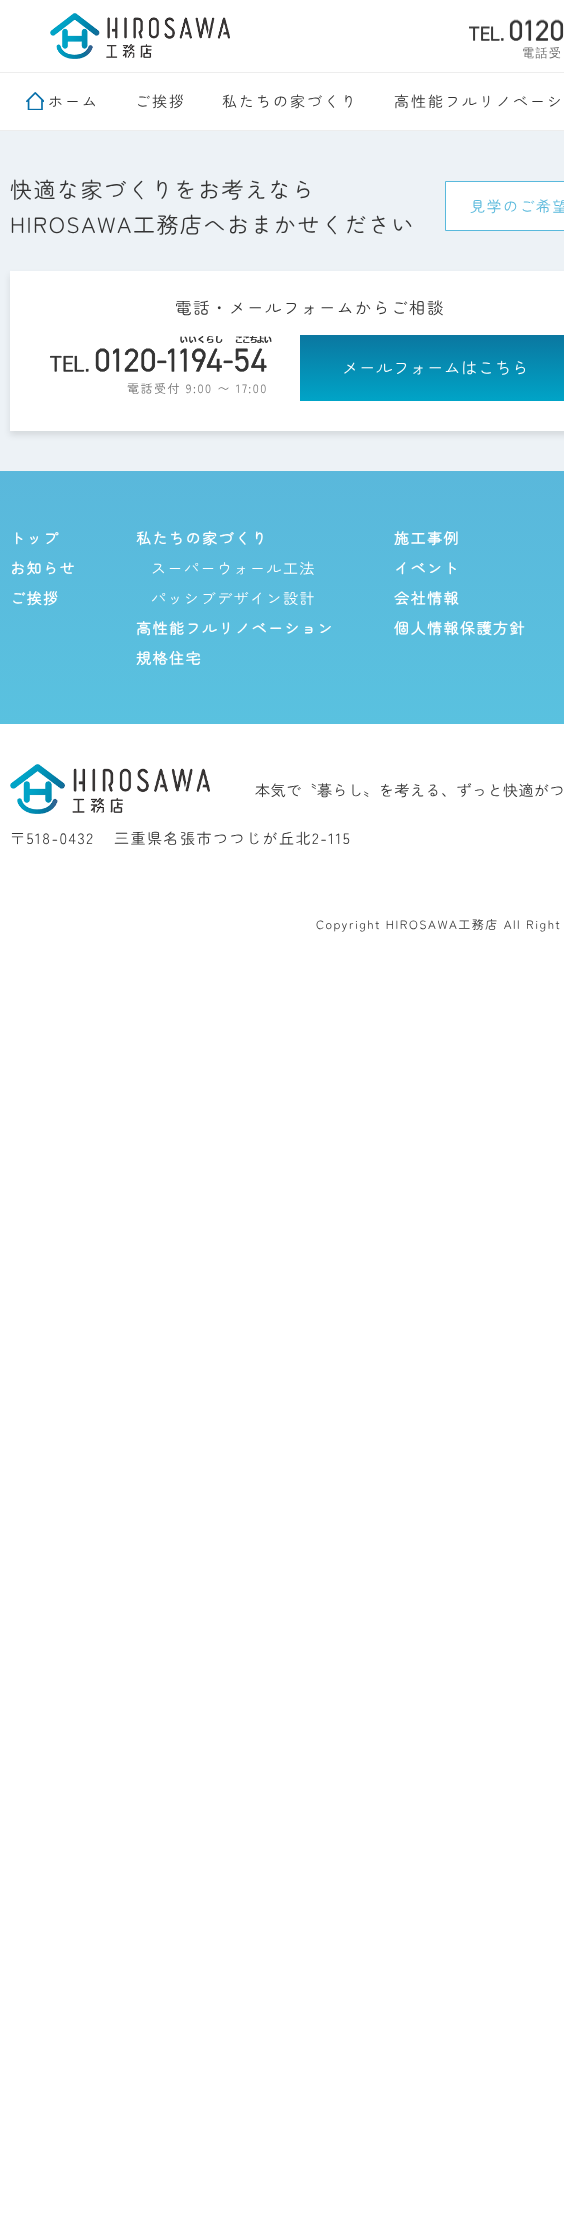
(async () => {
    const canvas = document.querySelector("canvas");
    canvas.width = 564;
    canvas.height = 2231;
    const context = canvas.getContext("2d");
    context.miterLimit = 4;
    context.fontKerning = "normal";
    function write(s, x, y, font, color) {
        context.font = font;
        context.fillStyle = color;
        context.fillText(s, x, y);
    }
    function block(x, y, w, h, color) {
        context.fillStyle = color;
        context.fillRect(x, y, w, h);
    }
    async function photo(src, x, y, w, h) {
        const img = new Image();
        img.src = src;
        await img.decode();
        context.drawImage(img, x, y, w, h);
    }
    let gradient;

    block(0, 0, 564, 2231, "rgb(255, 255, 255)");
    await photo("media/1.png", 50, 13, 180, 46);
    await photo("media/2.png", 469, 19, 95, 22);
    context.letterSpacing = "1.5px";
    write("電話受", 522, 57, "500 12px WenQuanYi Zen Hei", "rgb(112, 112, 112)");
    block(0, 72, 564, 1, "rgb(237, 237, 237)");
    block(0, 130, 564, 1, "rgb(237, 237, 237)");
    await photo("media/3.png", 26, 92, 18, 18);
    context.letterSpacing = "2px";
    write("ホーム", 48, 107, "15px Zen Maru Gothic", "rgb(51, 51, 51)");
    write("ご挨拶", 135, 107, "15px Zen Maru Gothic", "rgb(51, 51, 51)");
    write("私たちの家づくり", 222, 107, "15px Zen Maru Gothic", "rgb(51, 51, 51)");
    write("高性能フルリノベーシ", 394, 107, "15px Zen Maru Gothic", "rgb(51, 51, 51)");
    gradient = context.createLinearGradient(520, 954, 520, 131);
    gradient.addColorStop(0, "rgb(89, 202, 227)");
    gradient.addColorStop(1, "rgb(90, 171, 214)");
    context.fillStyle = gradient;
    context.fillRect(0, 471, 564, 253);
    block(0, 131, 564, 340, "rgb(237, 242, 246)");
    context.letterSpacing = "1.5px";
    write("快適な家づくりをお考えなら", 10, 198, "22px Zen Maru Gothic", "rgb(51, 51, 51)");
    write("HIROSAWA工務店へおまかせください", 10, 233, "22px Zen Maru Gothic", "rgb(51, 51, 51)");
    context.fillStyle = "rgb(255, 255, 255)";
    context.beginPath();
    context.rect(445.5, 181.5, 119, 49);
    context.fill();
    context.strokeStyle = "rgb(89, 185, 220)";
    context.stroke();
    write("見学のご希望", 470, 212, "15px Zen Maru Gothic", "rgb(89, 185, 220)");
    context.fillStyle = "rgba(0, 0, 0, 0.1)";
    context.filter = "blur(3px)";
    context.beginPath();
    context.rect(10, 275, 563, 160);
    context.fill();
    context.filter = "none";
    block(10, 271, 554, 160, "rgb(255, 255, 255)");
    write("電話・メールフォームからご相談", 175, 314, "16.5px Zen Maru Gothic", "rgb(51, 51, 51)");
    gradient = context.createLinearGradient(435, 401, 435, 335);
    gradient.addColorStop(0, "rgb(0, 164, 199)");
    gradient.addColorStop(1, "rgb(11, 119, 160)");
    context.fillStyle = gradient;
    context.fillRect(300, 335, 264, 66);
    context.letterSpacing = "0.5px";
    write("メールフォームはこちら", 342, 374, "16.5px Zen Maru Gothic", "rgb(255, 255, 255)");
    await photo("media/4.png", 50, 336, 222, 36);
    context.letterSpacing = "1.5px";
    write("電話受付 9:00 〜 17:00", 127, 393, "12px Zen Maru Gothic", "rgb(112, 112, 112)");
    write("トップ", 10, 544, "bold 15px Zen Maru Gothic", "rgb(255, 255, 255)");
    write("お知らせ", 10, 574, "bold 15px Zen Maru Gothic", "rgb(255, 255, 255)");
    write("ご挨拶", 10, 604, "bold 15px Zen Maru Gothic", "rgb(255, 255, 255)");
    write("私たちの家づくり", 136, 544, "bold 15px Zen Maru Gothic", "rgb(255, 255, 255)");
    write("スーパーウォール工法", 151, 574, "15px Zen Maru Gothic", "rgb(255, 255, 255)");
    write("パッシブデザイン設計", 151, 604, "15px Zen Maru Gothic", "rgb(255, 255, 255)");
    write("高性能フルリノベーション", 136, 634, "bold 15px Zen Maru Gothic", "rgb(255, 255, 255)");
    write("規格住宅", 136, 664, "bold 15px Zen Maru Gothic", "rgb(255, 255, 255)");
    write("施工事例", 394, 544, "bold 15px Zen Maru Gothic", "rgb(255, 255, 255)");
    write("イベント", 394, 574, "bold 15px Zen Maru Gothic", "rgb(255, 255, 255)");
    write("会社情報", 394, 604, "bold 15px Zen Maru Gothic", "rgb(255, 255, 255)");
    write("個人情報保護方針", 394, 634, "bold 15px Zen Maru Gothic", "rgb(255, 255, 255)");
    await photo("media/5.png", 10, 764, 200, 50);
    context.letterSpacing = "0.5px";
    write("本気で〝暮らし〟を考える、ずっと快適がつ", 255, 796, "15px Zen Maru Gothic", "rgb(51, 51, 51)");
    context.letterSpacing = "1.5px";
    write("〒518-0432", 10, 844, "15px Zen Maru Gothic", "rgb(51, 51, 51)");
    write("三重県名張市つつじが丘北2-115", 114, 844, "15px Zen Maru Gothic", "rgb(51, 51, 51)");
    write("Copyright HIROSAWA工務店 All Right", 316, 929, "12px Zen Maru Gothic", "rgb(51, 51, 51)");
})();
